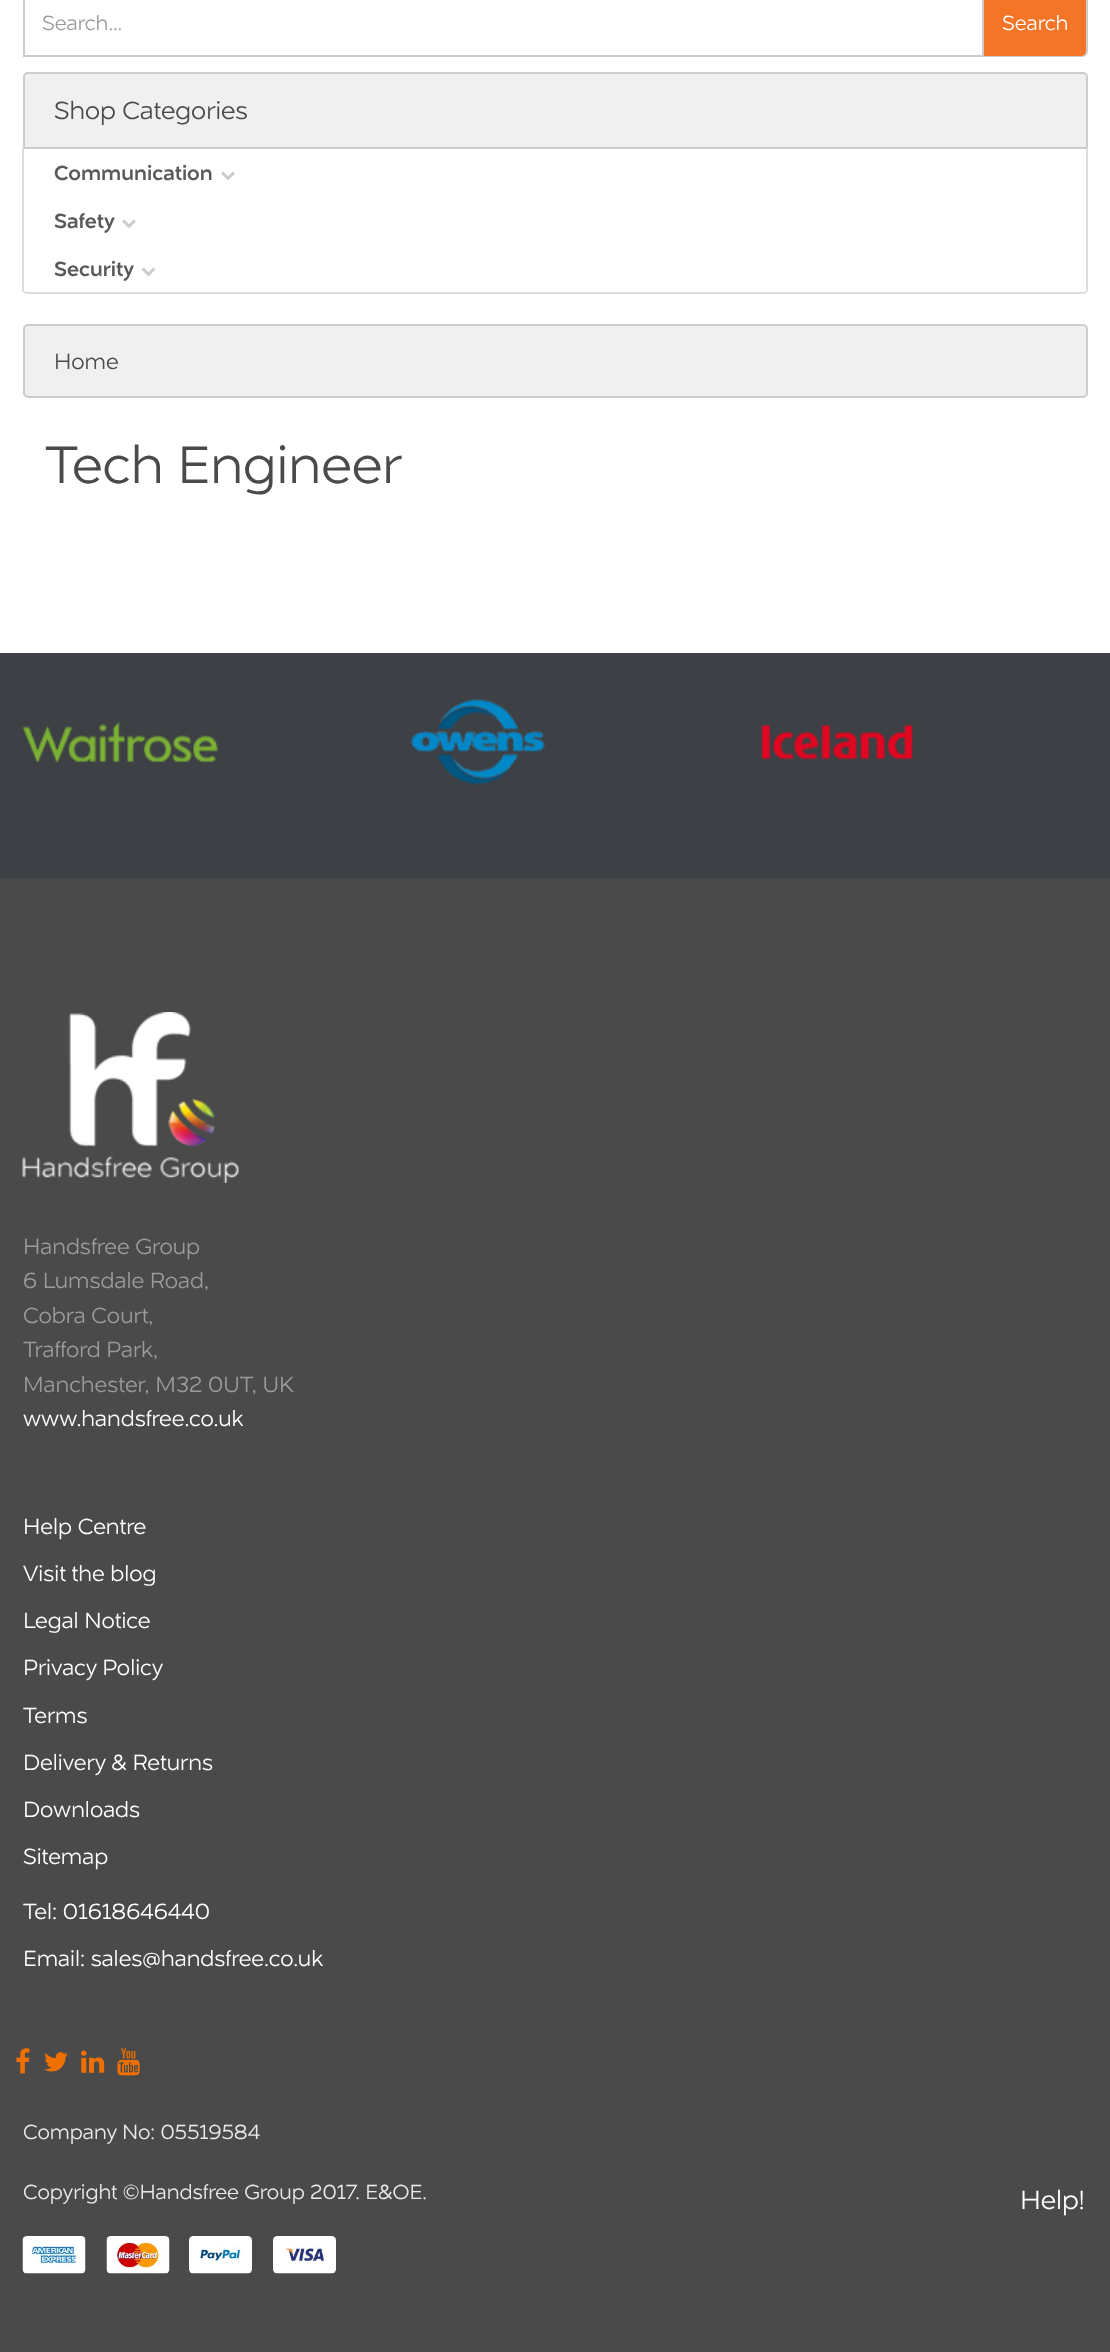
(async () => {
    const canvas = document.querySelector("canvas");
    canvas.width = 1110;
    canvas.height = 2352;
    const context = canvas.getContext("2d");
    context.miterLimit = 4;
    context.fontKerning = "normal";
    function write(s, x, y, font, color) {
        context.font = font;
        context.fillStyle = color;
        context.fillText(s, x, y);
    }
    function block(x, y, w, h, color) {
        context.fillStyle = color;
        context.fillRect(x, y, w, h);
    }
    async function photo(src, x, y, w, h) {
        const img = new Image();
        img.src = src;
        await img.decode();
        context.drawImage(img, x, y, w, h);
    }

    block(0, 0, 1110, 2352, "rgb(255, 255, 255)");
    context.strokeStyle = "rgb(204, 204, 204)";
    context.lineWidth = 2;
    context.strokeRect(24, -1, 959, 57);
    write("Search...", 42, 30, "300 21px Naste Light", "rgb(155, 155, 155)");
    context.fillStyle = "rgb(238, 238, 238)";
    context.beginPath();
    context.moveTo(984, -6);
    context.lineTo(1082, -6);
    context.bezierCurveTo(1085.5, -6, 1088, -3.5, 1088, 0);
    context.lineTo(1088, 51);
    context.bezierCurveTo(1088, 54.5, 1085.5, 57, 1082, 57);
    context.lineTo(984, 57);
    context.closePath();
    context.fill();
    context.fillStyle = "rgb(204, 204, 204)";
    context.beginPath();
    context.moveTo(984, -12);
    context.lineTo(1082, -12);
    context.bezierCurveTo(1085, -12, 1088, -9, 1088, -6);
    context.lineTo(1088, 51);
    context.bezierCurveTo(1088, 54, 1085, 57, 1082, 57);
    context.lineTo(984, 57);
    context.closePath();
    context.moveTo(984, -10);
    context.lineTo(1082, -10);
    context.bezierCurveTo(1084, -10, 1086, -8, 1086, -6);
    context.lineTo(1086, 51);
    context.bezierCurveTo(1086, 53, 1084, 56, 1082, 56);
    context.lineTo(984, 56);
    context.closePath();
    context.fill("evenodd");
    context.fillStyle = "rgb(244, 117, 39)";
    context.beginPath();
    context.moveTo(984, -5);
    context.lineTo(1081, -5);
    context.bezierCurveTo(1084, -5, 1086, -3, 1086, 0);
    context.lineTo(1086, 51);
    context.bezierCurveTo(1086, 54, 1084, 56, 1081, 56);
    context.lineTo(984, 56);
    context.closePath();
    context.fill();
    write("Search", 1002, 30, "300 21px Naste Light", "rgb(255, 255, 255)");
    context.fillStyle = "rgb(240, 240, 240)";
    context.beginPath();
    context.roundRect(24, 73, 1063, 75, [4, 4, 0, 0]);
    context.fill();
    context.stroke();
    write("Shop Categories", 54, 119, "300 25.5px Naste Light", "rgb(74, 74, 74)");
    context.fillStyle = "rgb(221, 221, 221)";
    context.beginPath();
    context.moveTo(22, 148);
    context.lineTo(1088, 148);
    context.lineTo(1088, 290);
    context.bezierCurveTo(1088, 292, 1085, 294, 1083, 294);
    context.lineTo(27, 294);
    context.bezierCurveTo(25, 294, 22, 292, 22, 290);
    context.closePath();
    context.moveTo(24, 148);
    context.lineTo(1086, 148);
    context.lineTo(1086, 290);
    context.bezierCurveTo(1086, 291, 1085, 292, 1083, 292);
    context.lineTo(27, 292);
    context.bezierCurveTo(25, 292, 24, 291, 24, 290);
    context.closePath();
    context.fill("evenodd");
    write("Communication", 54, 180, "21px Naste", "rgb(90, 90, 90)");
    await photo("media/1.png", 221, 171, 14, 9);
    write("Safety", 54, 228, "21px Naste", "rgb(90, 90, 90)");
    await photo("media/1.png", 122, 219, 14, 9);
    write("Security", 54, 276, "21px Naste", "rgb(90, 90, 90)");
    await photo("media/2.png", 141, 267, 15, 10);
    context.fillStyle = "rgb(240, 240, 240)";
    context.beginPath();
    context.roundRect(24, 325, 1063, 72, 4);
    context.fill();
    context.stroke();
    write("Home", 54, 369, "300 22.5px Naste Light", "rgb(74, 74, 74)");
    write("Tech Engineer", 45, 483, "300 54px Naste Light", "rgb(74, 74, 74)");
    block(0, 878, 1110, 1474, "rgb(74, 74, 74)");
    block(0, 653, 1110, 225, "rgb(61, 64, 69)");
    await photo("media/3.png", 22, 722, 196, 41);
    await photo("media/4.png", 410, 699, 135, 86);
    await photo("media/5.png", 761, 724, 152, 36);
    await photo("media/6.png", 22, 1012, 217, 171);
    write("Handsfree Group", 23, 1254, "300 22.5px Naste Light", "rgb(155, 155, 155)");
    write("6 Lumsdale Road,", 23, 1288, "300 22.5px Naste Light", "rgb(155, 155, 155)");
    write("Cobra Court,", 23, 1323, "300 22.5px Naste Light", "rgb(155, 155, 155)");
    write("Trafford Park,", 23, 1357, "300 22.5px Naste Light", "rgb(155, 155, 155)");
    write("Manchester, M32 0UT, UK", 23, 1392, "300 22.5px Naste Light", "rgb(155, 155, 155)");
    write("www.handsfree.co.uk", 23, 1426, "300 22.5px Naste Light", "rgb(255, 255, 255)");
    write("Help Centre", 23, 1534, "300 22.5px Naste Light", "rgb(255, 255, 255)");
    write("Visit the blog", 23, 1581, "300 22.5px Naste Light", "rgb(255, 255, 255)");
    write("Legal Notice", 23, 1628, "300 22.5px Naste Light", "rgb(255, 255, 255)");
    write("Privacy Policy", 23, 1675, "300 22.5px Naste Light", "rgb(255, 255, 255)");
    write("Terms", 23, 1723, "300 22.5px Naste Light", "rgb(255, 255, 255)");
    write("Delivery & Returns", 23, 1770, "300 22.5px Naste Light", "rgb(255, 255, 255)");
    write("Downloads", 23, 1817, "300 22.5px Naste Light", "rgb(255, 255, 255)");
    write("Sitemap", 23, 1864, "300 22.5px Naste Light", "rgb(255, 255, 255)");
    write("Tel: 01618646440", 23, 1919, "300 22.5px Naste Light", "rgb(255, 255, 255)");
    write("Email: sales@handsfree.co.uk", 23, 1966, "300 22.5px Naste Light", "rgb(255, 255, 255)");
    await photo("media/7.png", 16, 2048, 14, 26);
    await photo("media/8.png", 44, 2052, 24, 20);
    await photo("media/9.png", 81, 2050, 24, 23);
    await photo("media/10.png", 117, 2048, 23, 28);
    write("Company No: 05519584", 23, 2139, "300 21px Naste Light", "rgb(234, 234, 234)");
    write("Copyright ©Handsfree Group 2017. E&OE.", 23, 2199, "300 21px Naste Light", "rgb(234, 234, 234)");
    await photo("media/11.png", 22, 2236, 64, 38);
    await photo("media/12.png", 106, 2236, 64, 38);
    await photo("media/13.png", 189, 2236, 63, 38);
    await photo("media/14.png", 273, 2236, 63, 38);
    write("Help!", 1020, 2209, "300 27px Naste Light", "rgb(255, 255, 255)");
})();
